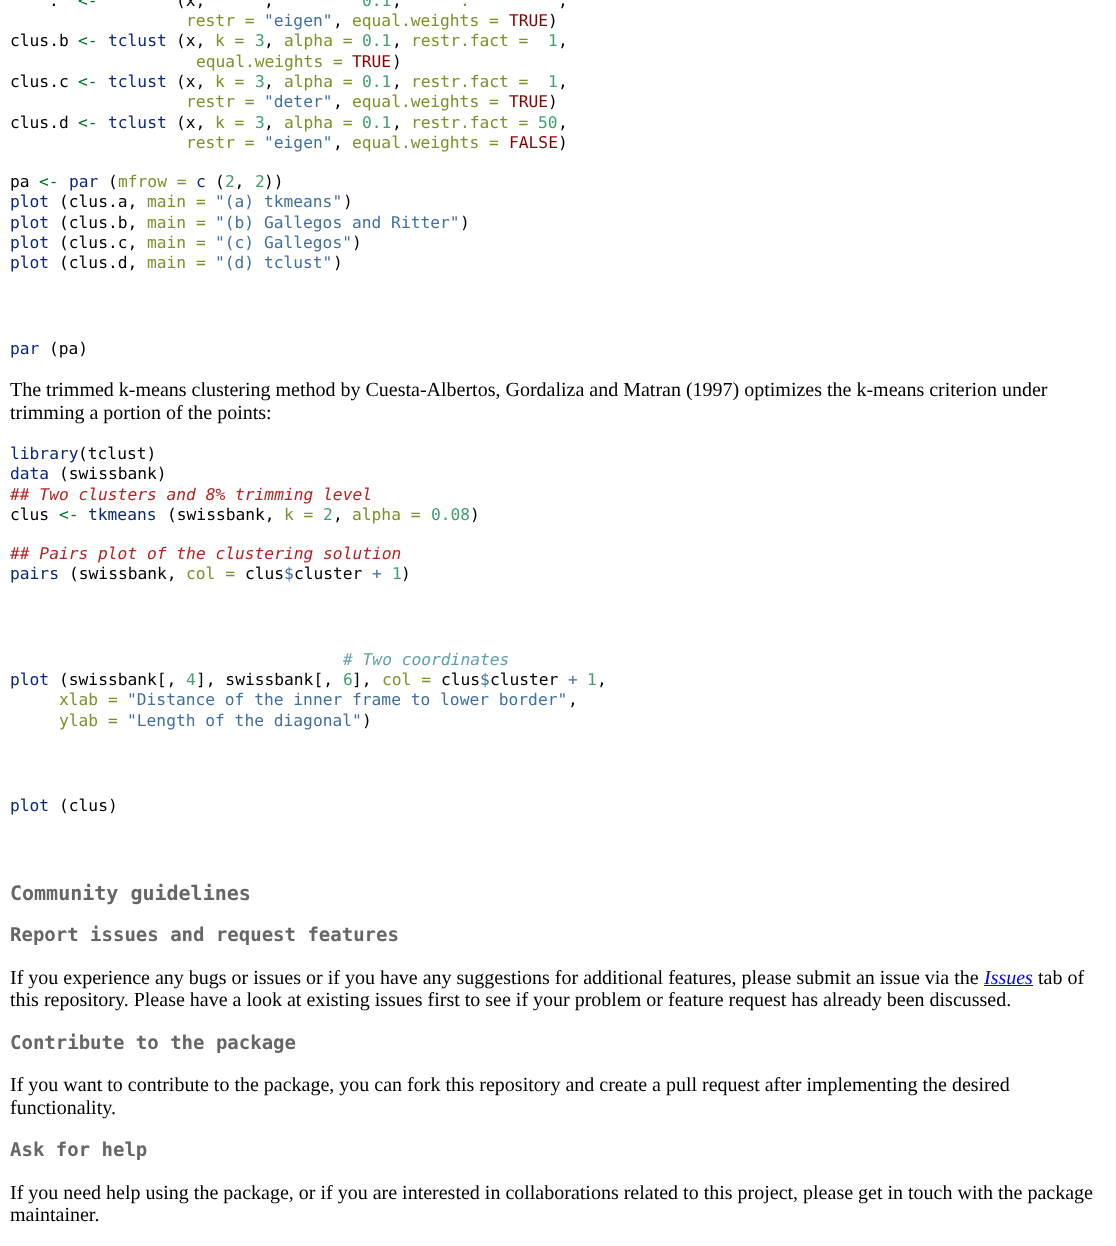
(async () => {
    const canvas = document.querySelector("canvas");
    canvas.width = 1116;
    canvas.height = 1246;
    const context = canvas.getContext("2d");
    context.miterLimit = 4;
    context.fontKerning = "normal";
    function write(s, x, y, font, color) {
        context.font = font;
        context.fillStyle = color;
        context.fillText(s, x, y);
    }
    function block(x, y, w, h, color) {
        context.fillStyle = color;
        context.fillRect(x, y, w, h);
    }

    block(0, 0, 1116, 1246, "rgb(255, 255, 255)");
    write(".", 49, 6, "16.25px DejaVu Sans Mono", "rgb(0, 0, 0)");
    write("<-", 78, 6, "16.25px DejaVu Sans Mono", "rgb(0, 112, 32)");
    write("(x,", 176, 6, "16.25px DejaVu Sans Mono", "rgb(0, 0, 0)");
    write(",", 264, 6, "16.25px DejaVu Sans Mono", "rgb(0, 0, 0)");
    write("0.1", 362, 6, "16.25px DejaVu Sans Mono", "rgb(64, 160, 112)");
    write(",", 392, 6, "16.25px DejaVu Sans Mono", "rgb(0, 0, 0)");
    write(".", 460, 6, "16.25px DejaVu Sans Mono", "rgb(125, 144, 41)");
    write(",", 558, 6, "16.25px DejaVu Sans Mono", "rgb(0, 0, 0)");
    write("restr =", 186, 26, "16.25px DejaVu Sans Mono", "rgb(125, 144, 41)");
    write("\"eigen\"", 264, 26, "16.25px DejaVu Sans Mono", "rgb(64, 112, 160)");
    write(",", 333, 26, "16.25px DejaVu Sans Mono", "rgb(0, 0, 0)");
    write("equal.weights =", 352, 26, "16.25px DejaVu Sans Mono", "rgb(125, 144, 41)");
    write("TRUE", 509, 26, "16.25px DejaVu Sans Mono", "rgb(136, 0, 0)");
    write(")", 548, 26, "16.25px DejaVu Sans Mono", "rgb(0, 0, 0)");
    write("clus.b", 10, 46, "16.25px DejaVu Sans Mono", "rgb(0, 0, 0)");
    write("<-", 78, 46, "16.25px DejaVu Sans Mono", "rgb(0, 112, 32)");
    write("tclust", 108, 46, "16.25px DejaVu Sans Mono", "rgb(6, 40, 126)");
    write("(x,", 176, 46, "16.25px DejaVu Sans Mono", "rgb(0, 0, 0)");
    write("k =", 215, 46, "16.25px DejaVu Sans Mono", "rgb(125, 144, 41)");
    write("3", 255, 46, "16.25px DejaVu Sans Mono", "rgb(64, 160, 112)");
    write("alpha =", 284, 46, "16.25px DejaVu Sans Mono", "rgb(125, 144, 41)");
    write("0.1", 362, 46, "16.25px DejaVu Sans Mono", "rgb(64, 160, 112)");
    write("restr.fact =", 411, 46, "16.25px DejaVu Sans Mono", "rgb(125, 144, 41)");
    write("1", 548, 46, "16.25px DejaVu Sans Mono", "rgb(64, 160, 112)");
    write(",", 264, 46, "16.25px DejaVu Sans Mono", "rgb(0, 0, 0)");
    write(",", 392, 46, "16.25px DejaVu Sans Mono", "rgb(0, 0, 0)");
    write(",", 558, 46, "16.25px DejaVu Sans Mono", "rgb(0, 0, 0)");
    write("equal.weights =", 196, 67, "16.25px DejaVu Sans Mono", "rgb(125, 144, 41)");
    write("TRUE", 352, 67, "16.25px DejaVu Sans Mono", "rgb(136, 0, 0)");
    write(")", 392, 67, "16.25px DejaVu Sans Mono", "rgb(0, 0, 0)");
    write("clus.c", 10, 87, "16.25px DejaVu Sans Mono", "rgb(0, 0, 0)");
    write("<-", 78, 87, "16.25px DejaVu Sans Mono", "rgb(0, 112, 32)");
    write("tclust", 108, 87, "16.25px DejaVu Sans Mono", "rgb(6, 40, 126)");
    write("(x,", 176, 87, "16.25px DejaVu Sans Mono", "rgb(0, 0, 0)");
    write("k =", 215, 87, "16.25px DejaVu Sans Mono", "rgb(125, 144, 41)");
    write("3", 255, 87, "16.25px DejaVu Sans Mono", "rgb(64, 160, 112)");
    write("alpha =", 284, 87, "16.25px DejaVu Sans Mono", "rgb(125, 144, 41)");
    write("0.1", 362, 87, "16.25px DejaVu Sans Mono", "rgb(64, 160, 112)");
    write("restr.fact =", 411, 87, "16.25px DejaVu Sans Mono", "rgb(125, 144, 41)");
    write("1", 548, 87, "16.25px DejaVu Sans Mono", "rgb(64, 160, 112)");
    write(",", 264, 87, "16.25px DejaVu Sans Mono", "rgb(0, 0, 0)");
    write(",", 392, 87, "16.25px DejaVu Sans Mono", "rgb(0, 0, 0)");
    write(",", 558, 87, "16.25px DejaVu Sans Mono", "rgb(0, 0, 0)");
    write("restr =", 186, 107, "16.25px DejaVu Sans Mono", "rgb(125, 144, 41)");
    write("\"deter\"", 264, 107, "16.25px DejaVu Sans Mono", "rgb(64, 112, 160)");
    write(",", 333, 107, "16.25px DejaVu Sans Mono", "rgb(0, 0, 0)");
    write("equal.weights =", 352, 107, "16.25px DejaVu Sans Mono", "rgb(125, 144, 41)");
    write("TRUE", 509, 107, "16.25px DejaVu Sans Mono", "rgb(136, 0, 0)");
    write(")", 548, 107, "16.25px DejaVu Sans Mono", "rgb(0, 0, 0)");
    write("clus.d", 10, 128, "16.25px DejaVu Sans Mono", "rgb(0, 0, 0)");
    write("<-", 78, 128, "16.25px DejaVu Sans Mono", "rgb(0, 112, 32)");
    write("tclust", 108, 128, "16.25px DejaVu Sans Mono", "rgb(6, 40, 126)");
    write("(x,", 176, 128, "16.25px DejaVu Sans Mono", "rgb(0, 0, 0)");
    write("k =", 215, 128, "16.25px DejaVu Sans Mono", "rgb(125, 144, 41)");
    write("3", 255, 128, "16.25px DejaVu Sans Mono", "rgb(64, 160, 112)");
    write("alpha =", 284, 128, "16.25px DejaVu Sans Mono", "rgb(125, 144, 41)");
    write("0.1", 362, 128, "16.25px DejaVu Sans Mono", "rgb(64, 160, 112)");
    write("restr.fact =", 411, 128, "16.25px DejaVu Sans Mono", "rgb(125, 144, 41)");
    write("50", 538, 128, "16.25px DejaVu Sans Mono", "rgb(64, 160, 112)");
    write(",", 264, 128, "16.25px DejaVu Sans Mono", "rgb(0, 0, 0)");
    write(",", 392, 128, "16.25px DejaVu Sans Mono", "rgb(0, 0, 0)");
    write(",", 558, 128, "16.25px DejaVu Sans Mono", "rgb(0, 0, 0)");
    write("restr =", 186, 148, "16.25px DejaVu Sans Mono", "rgb(125, 144, 41)");
    write("\"eigen\"", 264, 148, "16.25px DejaVu Sans Mono", "rgb(64, 112, 160)");
    write(",", 333, 148, "16.25px DejaVu Sans Mono", "rgb(0, 0, 0)");
    write("equal.weights =", 352, 148, "16.25px DejaVu Sans Mono", "rgb(125, 144, 41)");
    write("FALSE", 509, 148, "16.25px DejaVu Sans Mono", "rgb(136, 0, 0)");
    write(")", 558, 148, "16.25px DejaVu Sans Mono", "rgb(0, 0, 0)");
    write("(", 108, 187, "16.25px DejaVu Sans Mono", "rgb(0, 0, 0)");
    write("mfrow =", 118, 187, "16.25px DejaVu Sans Mono", "rgb(125, 144, 41)");
    write("( ,", 215, 187, "16.25px DejaVu Sans Mono", "rgb(0, 0, 0)");
    write("pa", 10, 187, "16.25px DejaVu Sans Mono", "rgb(0, 0, 0)");
    write("<-", 39, 187, "16.25px DejaVu Sans Mono", "rgb(0, 112, 32)");
    write("par", 69, 187, "16.25px DejaVu Sans Mono", "rgb(6, 40, 126)");
    write("c", 196, 187, "16.25px DejaVu Sans Mono", "rgb(6, 40, 126)");
    write("2", 225, 187, "16.25px DejaVu Sans Mono", "rgb(64, 160, 112)");
    write("2", 255, 187, "16.25px DejaVu Sans Mono", "rgb(64, 160, 112)");
    write("))", 264, 187, "16.25px DejaVu Sans Mono", "rgb(0, 0, 0)");
    write("plot", 10, 207, "16.25px DejaVu Sans Mono", "rgb(6, 40, 126)");
    write("(clus.a,", 59, 207, "16.25px DejaVu Sans Mono", "rgb(0, 0, 0)");
    write("main =", 147, 207, "16.25px DejaVu Sans Mono", "rgb(125, 144, 41)");
    write("\"(a) tkmeans\"", 215, 207, "16.25px DejaVu Sans Mono", "rgb(64, 112, 160)");
    write(")", 343, 207, "16.25px DejaVu Sans Mono", "rgb(0, 0, 0)");
    write("plot", 10, 228, "16.25px DejaVu Sans Mono", "rgb(6, 40, 126)");
    write("(clus.b,", 59, 228, "16.25px DejaVu Sans Mono", "rgb(0, 0, 0)");
    write("main =", 147, 228, "16.25px DejaVu Sans Mono", "rgb(125, 144, 41)");
    write("\"(b) Gallegos and Ritter\"", 215, 228, "16.25px DejaVu Sans Mono", "rgb(64, 112, 160)");
    write(")", 460, 228, "16.25px DejaVu Sans Mono", "rgb(0, 0, 0)");
    write("plot", 10, 248, "16.25px DejaVu Sans Mono", "rgb(6, 40, 126)");
    write("(clus.c,", 59, 248, "16.25px DejaVu Sans Mono", "rgb(0, 0, 0)");
    write("main =", 147, 248, "16.25px DejaVu Sans Mono", "rgb(125, 144, 41)");
    write("\"(c) Gallegos\"", 215, 248, "16.25px DejaVu Sans Mono", "rgb(64, 112, 160)");
    write(")", 352, 248, "16.25px DejaVu Sans Mono", "rgb(0, 0, 0)");
    write("plot", 10, 268, "16.25px DejaVu Sans Mono", "rgb(6, 40, 126)");
    write("(clus.d,", 59, 268, "16.25px DejaVu Sans Mono", "rgb(0, 0, 0)");
    write("main =", 147, 268, "16.25px DejaVu Sans Mono", "rgb(125, 144, 41)");
    write("\"(d) tclust\"", 215, 268, "16.25px DejaVu Sans Mono", "rgb(64, 112, 160)");
    write(")", 333, 268, "16.25px DejaVu Sans Mono", "rgb(0, 0, 0)");
    write("par", 10, 354, "16.25px DejaVu Sans Mono", "rgb(6, 40, 126)");
    write("(pa)", 49, 354, "16.25px DejaVu Sans Mono", "rgb(0, 0, 0)");
    write("The trimmed k-means clustering method by Cuesta-Albertos, Gordaliza and Matran (1997) optimizes the k-means criterion under", 10, 396, "20px Liberation Serif", "rgb(0, 0, 0)");
    write("trimming a portion of the points:", 10, 419, "20px Liberation Serif", "rgb(0, 0, 0)");
    write("library", 10, 459, "16.25px DejaVu Sans Mono", "rgb(6, 40, 126)");
    write("(tclust)", 78, 459, "16.25px DejaVu Sans Mono", "rgb(0, 0, 0)");
    write("data", 10, 479, "16.25px DejaVu Sans Mono", "rgb(6, 40, 126)");
    write("(swissbank)", 59, 479, "16.25px DejaVu Sans Mono", "rgb(0, 0, 0)");
    write("## Two clusters and 8% trimming level", 10, 500, "italic 16.25px DejaVu Sans Mono", "rgb(186, 33, 33)");
    write("clus", 10, 520, "16.25px DejaVu Sans Mono", "rgb(0, 0, 0)");
    write("<-", 59, 520, "16.25px DejaVu Sans Mono", "rgb(0, 112, 32)");
    write("tkmeans", 88, 520, "16.25px DejaVu Sans Mono", "rgb(6, 40, 126)");
    write("(swissbank,", 167, 520, "16.25px DejaVu Sans Mono", "rgb(0, 0, 0)");
    write("k =", 284, 520, "16.25px DejaVu Sans Mono", "rgb(125, 144, 41)");
    write("2", 323, 520, "16.25px DejaVu Sans Mono", "rgb(64, 160, 112)");
    write("alpha =", 352, 520, "16.25px DejaVu Sans Mono", "rgb(125, 144, 41)");
    write("0.08", 431, 520, "16.25px DejaVu Sans Mono", "rgb(64, 160, 112)");
    write(")", 470, 520, "16.25px DejaVu Sans Mono", "rgb(0, 0, 0)");
    write(",", 333, 520, "16.25px DejaVu Sans Mono", "rgb(0, 0, 0)");
    write("## Pairs plot of the clustering solution", 10, 559, "italic 16.25px DejaVu Sans Mono", "rgb(186, 33, 33)");
    write("pairs", 10, 579, "16.25px DejaVu Sans Mono", "rgb(6, 40, 126)");
    write("(swissbank,", 69, 579, "16.25px DejaVu Sans Mono", "rgb(0, 0, 0)");
    write("col =", 186, 579, "16.25px DejaVu Sans Mono", "rgb(125, 144, 41)");
    write("clus cluster", 245, 579, "16.25px DejaVu Sans Mono", "rgb(0, 0, 0)");
    write("$", 284, 579, "16.25px DejaVu Sans Mono", "rgb(64, 112, 160)");
    write("+", 372, 579, "16.25px DejaVu Sans Mono", "rgb(64, 112, 160)");
    write("1", 392, 579, "16.25px DejaVu Sans Mono", "rgb(64, 160, 112)");
    write(")", 401, 579, "16.25px DejaVu Sans Mono", "rgb(0, 0, 0)");
    write("# Two coordinates", 343, 665, "italic 16.25px DejaVu Sans Mono", "rgb(96, 160, 176)");
    write("plot", 10, 685, "16.25px DejaVu Sans Mono", "rgb(6, 40, 126)");
    write("(swissbank[,", 59, 685, "16.25px DejaVu Sans Mono", "rgb(0, 0, 0)");
    write("], swissbank[,", 196, 685, "16.25px DejaVu Sans Mono", "rgb(0, 0, 0)");
    write("6", 343, 685, "16.25px DejaVu Sans Mono", "rgb(64, 160, 112)");
    write("],", 352, 685, "16.25px DejaVu Sans Mono", "rgb(0, 0, 0)");
    write("col =", 382, 685, "16.25px DejaVu Sans Mono", "rgb(125, 144, 41)");
    write("clus cluster", 441, 685, "16.25px DejaVu Sans Mono", "rgb(0, 0, 0)");
    write("4", 186, 685, "16.25px DejaVu Sans Mono", "rgb(64, 160, 112)");
    write("$", 480, 685, "16.25px DejaVu Sans Mono", "rgb(64, 112, 160)");
    write("+", 568, 685, "16.25px DejaVu Sans Mono", "rgb(64, 112, 160)");
    write("1", 587, 685, "16.25px DejaVu Sans Mono", "rgb(64, 160, 112)");
    write(",", 597, 685, "16.25px DejaVu Sans Mono", "rgb(0, 0, 0)");
    write("xlab =", 59, 705, "16.25px DejaVu Sans Mono", "rgb(125, 144, 41)");
    write("\"Distance of the inner frame to lower border\"", 127, 705, "16.25px DejaVu Sans Mono", "rgb(64, 112, 160)");
    write(",", 568, 705, "16.25px DejaVu Sans Mono", "rgb(0, 0, 0)");
    write("ylab =", 59, 726, "16.25px DejaVu Sans Mono", "rgb(125, 144, 41)");
    write("\"Length of the diagonal\"", 127, 726, "16.25px DejaVu Sans Mono", "rgb(64, 112, 160)");
    write(")", 362, 726, "16.25px DejaVu Sans Mono", "rgb(0, 0, 0)");
    write("plot", 10, 811, "16.25px DejaVu Sans Mono", "rgb(6, 40, 126)");
    write("(clus)", 59, 811, "16.25px DejaVu Sans Mono", "rgb(0, 0, 0)");
    write("Community guidelines", 10, 900, "bold 20px DejaVu Sans Mono", "rgb(102, 102, 102)");
    write("Report issues and request features", 10, 941, "bold 19px DejaVu Sans Mono", "rgb(102, 102, 102)");
    write("If you experience any bugs or issues or if you have any suggestions for additional features, please submit an issue via the", 10, 984, "20px Liberation Serif", "rgb(0, 0, 0)");
    write("Issues", 984, 984, "italic 20px Liberation Serif", "rgb(0, 0, 255)");
    block(984, 985, 49, 1, "rgb(0, 0, 255)");
    write("tab of", 1038, 984, "20px Liberation Serif", "rgb(0, 0, 0)");
    write("this repository. Please have a look at existing issues first to see if your problem or feature request has already been discussed.", 10, 1006, "20px Liberation Serif", "rgb(0, 0, 0)");
    write("Contribute to the package", 10, 1049, "bold 19px DejaVu Sans Mono", "rgb(102, 102, 102)");
    write("If you want to contribute to the package, you can fork this repository and create a pull request after implementing the desired", 10, 1091, "20px Liberation Serif", "rgb(0, 0, 0)");
    write("functionality.", 10, 1114, "20px Liberation Serif", "rgb(0, 0, 0)");
    write("Ask for help", 10, 1156, "bold 19px DejaVu Sans Mono", "rgb(102, 102, 102)");
    write("If you need help using the package, or if you are interested in collaborations related to this project, please get in touch with the package", 10, 1199, "20px Liberation Serif", "rgb(0, 0, 0)");
    write("maintainer.", 10, 1221, "20px Liberation Serif", "rgb(0, 0, 0)");
})();
